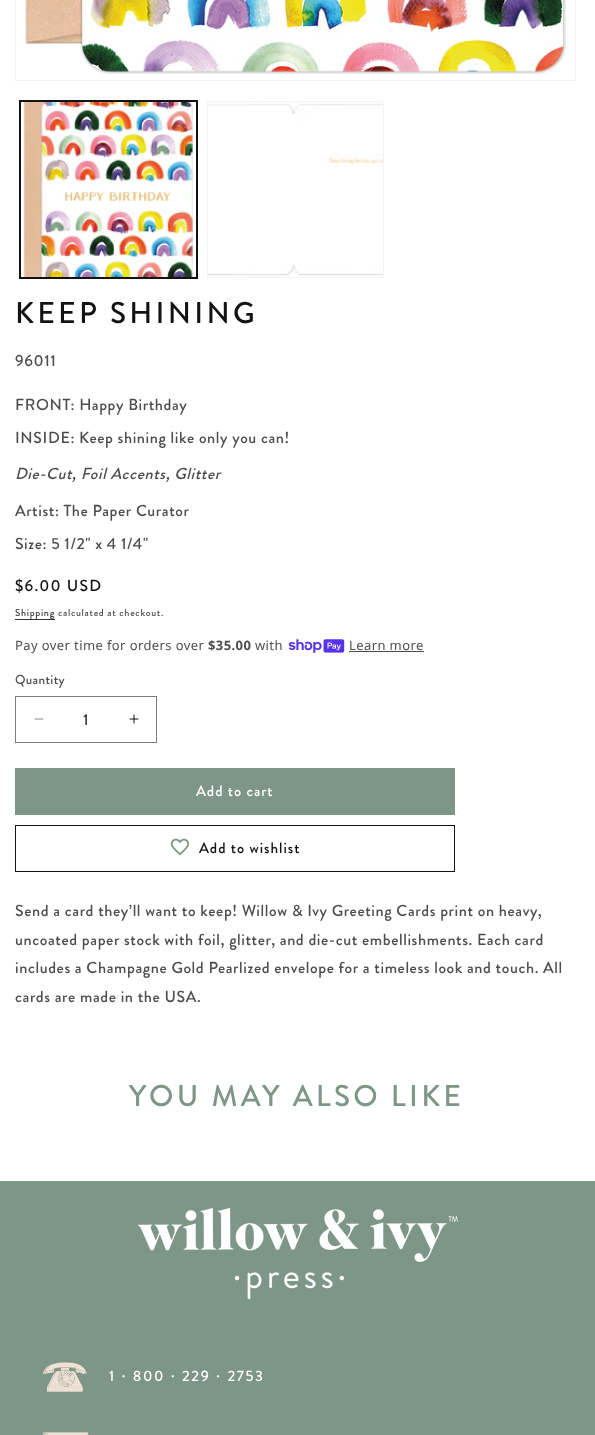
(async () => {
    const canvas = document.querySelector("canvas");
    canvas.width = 595;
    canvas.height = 1435;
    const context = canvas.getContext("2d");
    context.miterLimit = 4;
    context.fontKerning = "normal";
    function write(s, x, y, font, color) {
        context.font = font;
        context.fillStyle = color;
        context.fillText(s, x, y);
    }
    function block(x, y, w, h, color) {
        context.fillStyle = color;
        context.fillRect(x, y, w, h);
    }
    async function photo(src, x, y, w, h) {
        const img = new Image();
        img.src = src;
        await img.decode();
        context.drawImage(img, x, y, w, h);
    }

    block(0, 0, 595, 1435, "rgb(255, 255, 255)");
    context.strokeStyle = "rgb(243, 243, 243)";
    context.strokeRect(15.5, -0.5, 560, 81);
    await photo("media/1.png", 25, 0, 541, 74);
    context.strokeStyle = "rgb(18, 18, 18)";
    context.strokeRect(19.5, 100.5, 178, 178);
    context.strokeRect(20.5, 101.5, 176, 176);
    await photo("media/2.png", 23, 102, 170, 175);
    context.strokeStyle = "rgb(243, 243, 243)";
    context.strokeRect(207.5, 101.5, 176, 176);
    await photo("media/3.png", 208, 103, 175, 173);
    context.letterSpacing = "3.25px";
    write("KEEP SHINING", 15, 323, "500 30px Brandon Grotesque", "rgb(18, 18, 18)");
    context.letterSpacing = "0.6px";
    write("96011", 15, 366, "500 16px Brandon Grotesque", "rgb(77, 77, 77)");
    write("FRONT: Happy Birthday", 15, 410, "500 16px Brandon Grotesque", "rgb(77, 77, 77)");
    write("INSIDE: Keep shining like only you can!", 15, 443, "500 16px Brandon Grotesque", "rgb(77, 77, 77)");
    write("Die-Cut, Foil Accents, Glitter", 15, 479, "italic 500 16px Brandon Grotesque", "rgb(77, 77, 77)");
    write("Artist: The Paper Curator", 15, 516, "500 16px Brandon Grotesque", "rgb(77, 77, 77)");
    write("Size: 5 1/2\" x 4 1/4\"", 15, 549, "500 16px Brandon Grotesque", "rgb(77, 77, 77)");
    context.letterSpacing = "1.25px";
    write("$6.00 USD", 15, 591, "500 16px Brandon Grotesque", "rgb(18, 18, 18)");
    block(15, 619, 40, 1, "rgb(54, 54, 54)");
    context.letterSpacing = "0.7px";
    write("Shipping", 15, 616, "500 10px Brandon Grotesque", "rgb(53, 53, 53)");
    write("calculated at checkout.", 58, 616, "500 10px Brandon Grotesque", "rgb(77, 77, 77)");
    context.letterSpacing = "0.4px";
    write("Pay over time for orders over", 15, 650, "13px Noto Sans", "rgb(77, 77, 77)");
    write("$35.00", 208, 650, "bold 13px Noto Sans", "rgb(77, 77, 77)");
    write("with", 255, 650, "13px Noto Sans", "rgb(77, 77, 77)");
    await photo("media/4.png", 288, 639, 57, 14);
    write("Learn more", 349, 650, "13px Noto Sans", "rgb(77, 77, 77)");
    block(349, 651, 75, 1, "rgb(77, 77, 77)");
    write("Quantity", 15, 684, "500 13px Brandon Grotesque", "rgb(77, 77, 77)");
    await photo("media/5.png", 34, 718, 10, 2);
    await photo("media/6.png", 129, 714, 10, 10);
    context.strokeStyle = "rgb(125, 125, 125)";
    context.strokeRect(15.5, 696.5, 141, 46);
    context.letterSpacing = "0px";
    write("1", 83, 725, "500 16px Brandon Grotesque", "rgb(53, 53, 53)");
    block(15, 768, 440, 47, "rgb(125, 150, 135)");
    context.letterSpacing = "1px";
    write("Add to cart", 196, 796, "500 15px Brandon Grotesque", "rgb(255, 255, 255)");
    await photo("media/7.png", 170, 838, 19, 18);
    context.strokeStyle = "rgb(18, 18, 18)";
    context.strokeRect(15.5, 825.5, 439, 46);
    write("Add to wishlist", 199, 853, "500 15px Brandon Grotesque", "rgb(18, 18, 18)");
    context.letterSpacing = "0.6px";
    write("Send a card they’ll want to keep! Willow & Ivy Greeting Cards print on heavy,", 15, 916, "500 16px Brandon Grotesque", "rgb(77, 77, 77)");
    write("uncoated paper stock with foil, glitter, and die-cut embellishments. Each card", 15, 945, "500 16px Brandon Grotesque", "rgb(77, 77, 77)");
    write("includes a Champagne Gold Pearlized envelope for a timeless look and touch. All", 15, 973, "500 16px Brandon Grotesque", "rgb(77, 77, 77)");
    write("cards are made in the USA.", 15, 1002, "500 16px Brandon Grotesque", "rgb(77, 77, 77)");
    context.letterSpacing = "3.25px";
    write("YOU MAY ALSO LIKE", 129, 1106, "500 30px Brandon Grotesque", "rgb(125, 150, 135)");
    block(0, 1181, 595, 254, "rgb(125, 150, 135)");
    await photo("media/8.png", 138, 1208, 320, 91);
    await photo("media/9.png", 43, 1362, 44, 30);
    context.letterSpacing = "1.6px";
    write("1 ∙ 800 ∙ 229 ∙ 2753", 109, 1381, "500 15px Brandon Grotesque", "rgb(255, 255, 255)");
    await photo("media/10.png", 43, 1432, 46, 3);
})();
